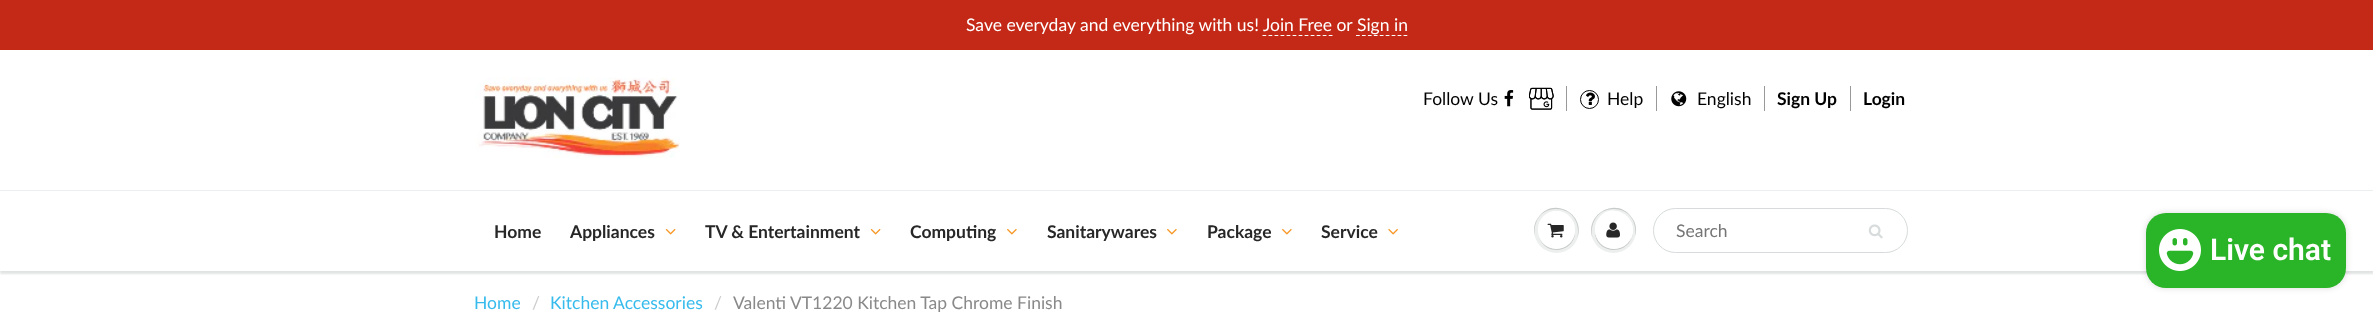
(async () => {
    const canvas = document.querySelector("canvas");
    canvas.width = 2373;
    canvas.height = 313;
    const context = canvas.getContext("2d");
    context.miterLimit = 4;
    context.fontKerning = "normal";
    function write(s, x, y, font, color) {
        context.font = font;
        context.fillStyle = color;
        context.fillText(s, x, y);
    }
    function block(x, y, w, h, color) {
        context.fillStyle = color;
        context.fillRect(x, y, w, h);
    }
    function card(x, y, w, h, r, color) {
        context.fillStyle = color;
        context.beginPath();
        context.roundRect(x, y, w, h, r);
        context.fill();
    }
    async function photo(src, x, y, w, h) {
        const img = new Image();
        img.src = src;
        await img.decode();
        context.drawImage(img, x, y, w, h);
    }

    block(0, 0, 2373, 313, "rgb(255, 255, 255)");
    block(0, 0, 2373, 50, "rgb(196, 41, 23)");
    write("Save everyday and everything with us! Join Free or", 966, 31, "17.5px Lato", "rgb(255, 255, 255)");
    context.beginPath();
    context.moveTo(1356, 35.5);
    context.lineTo(1407.5, 35.5);
    context.strokeStyle = "rgb(255, 255, 255)";
    context.lineWidth = 1.2;
    context.setLineDash([3.75, 2.19]);
    context.stroke();
    write("Sign in", 1357, 31, "17.5px Lato", "rgb(255, 255, 255)");
    context.beginPath();
    context.moveTo(1262.5, 35.5);
    context.lineTo(1332.5, 35.5);
    context.setLineDash([3.75, 2.27]);
    context.stroke();
    await photo("media/1.png", 475, 77, 205, 81);
    block(1566, 86, 1, 25, "rgb(153, 153, 153)");
    write("Follow Us", 1423, 105, "17.5px Lato", "rgb(0, 0, 0)");
    await photo("media/2.png", 1504, 90, 10, 17);
    await photo("media/3.png", 1529, 87, 25, 23);
    block(1656, 86, 1, 25, "rgb(153, 153, 153)");
    context.beginPath();
    context.arc(1589.5, 99.5, 9, 0, Math.PI * 2);
    context.strokeStyle = "rgb(0, 0, 0)";
    context.lineWidth = 1;
    context.setLineDash([]);
    context.stroke();
    await photo("media/4.png", 1586, 92, 9, 13);
    write("Help", 1607, 105, "17.5px Lato", "rgb(0, 0, 0)");
    block(1764, 86, 1, 25, "rgb(153, 153, 153)");
    await photo("media/5.png", 1671, 91, 16, 16);
    write("English", 1697, 105, "17.5px Lato", "rgb(0, 0, 0)");
    block(1850, 86, 1, 25, "rgb(153, 153, 153)");
    write("Sign Up", 1777, 105, "bold 17.5px Lato", "rgb(0, 0, 0)");
    write("Login", 1863, 105, "bold 17.5px Lato", "rgb(0, 0, 0)");
    context.save();
    context.beginPath();
    context.rect(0, 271, 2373, 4);
    context.clip();
    context.fillStyle = "rgba(11, 25, 28, 0.12)";
    context.filter = "blur(1px)";
    context.beginPath();
    context.rect(0, 193, 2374, 81);
    context.fill();
    context.filter = "none";
    context.restore();
    block(0, 190, 2373, 1, "rgb(236, 239, 239)");
    write("Home", 494, 238, "bold 17.5px Lato", "rgb(40, 39, 39)");
    write("Appliances", 570, 238, "bold 17.5px Lato", "rgb(40, 39, 39)");
    await photo("media/6.png", 665, 228, 11, 7);
    write("TV & Entertainment", 705, 238, "bold 17.5px Lato", "rgb(40, 39, 39)");
    await photo("media/6.png", 870, 228, 11, 7);
    write("Computing", 910, 238, "bold 17.5px Lato", "rgb(40, 39, 39)");
    await photo("media/7.png", 1007, 228, 10, 7);
    write("Sanitarywares", 1047, 238, "bold 17.5px Lato", "rgb(40, 39, 39)");
    await photo("media/7.png", 1167, 228, 10, 7);
    write("Package", 1207, 238, "bold 17.5px Lato", "rgb(40, 39, 39)");
    await photo("media/7.png", 1282, 228, 10, 7);
    write("Service", 1321, 238, "bold 17.5px Lato", "rgb(40, 39, 39)");
    await photo("media/8.png", 1388, 228, 10, 7);
    context.fillStyle = "rgb(237, 239, 239)";
    context.beginPath();
    context.arc(1556.5, 230.5, 22.5, 0, Math.PI * 2);
    context.fill();
    context.fillStyle = "rgb(201, 203, 203)";
    context.beginPath();
    context.moveTo(1556, 209);
    context.bezierCurveTo(1574, 209, 1581, 226, 1577, 239);
    context.bezierCurveTo(1587, 215, 1553, 195, 1538, 218);
    context.bezierCurveTo(1534, 223, 1533, 230, 1535, 236);
    context.bezierCurveTo(1533, 223, 1540, 209, 1556, 209);
    context.closePath();
    context.fill();
    context.beginPath();
    context.moveTo(1539, 237);
    context.bezierCurveTo(1545, 257.5, 1576, 252.5, 1575, 231);
    context.bezierCurveTo(1574, 251, 1546, 255.5, 1539, 237);
    context.closePath();
    context.fill();
    card(1538, 211, 37, 38, 18.5, "rgb(255, 255, 255)");
    context.beginPath();
    context.moveTo(1556, 212);
    context.bezierCurveTo(1571, 212, 1577, 225.5, 1574, 236);
    context.bezierCurveTo(1575.5, 231.5, 1575.5, 226.5, 1573.5, 222.5);
    context.bezierCurveTo(1565.5, 203.5, 1537.5, 209, 1538, 230.5);
    context.bezierCurveTo(1538, 221.5, 1544, 212, 1556, 212);
    context.closePath();
    context.fill();
    await photo("media/9.png", 1547, 223, 17, 15);
    context.fillStyle = "rgb(237, 239, 239)";
    context.beginPath();
    context.arc(1613.5, 230.5, 22.5, 0, Math.PI * 2);
    context.fill();
    context.fillStyle = "rgb(201, 203, 203)";
    context.beginPath();
    context.moveTo(1614, 209);
    context.bezierCurveTo(1630, 209, 1637, 223, 1635, 236);
    context.bezierCurveTo(1637, 230, 1636, 223, 1632, 218);
    context.bezierCurveTo(1617, 195, 1583, 215, 1593, 239);
    context.bezierCurveTo(1589, 226, 1596, 209, 1614, 209);
    context.closePath();
    context.fill();
    context.beginPath();
    context.moveTo(1595, 231);
    context.bezierCurveTo(1594, 251.5, 1623.5, 257.5, 1631.5, 238.5);
    context.bezierCurveTo(1633.5, 234.5, 1633.5, 229.5, 1632, 225);
    context.bezierCurveTo(1637, 243, 1614.5, 257, 1600.5, 243.5);
    context.bezierCurveTo(1597.5, 240, 1595, 235.5, 1595, 231);
    context.closePath();
    context.fill();
    context.fillStyle = "rgb(255, 255, 255)";
    context.beginPath();
    context.arc(1614, 230, 19, 0, Math.PI * 2);
    context.fill();
    context.beginPath();
    context.moveTo(1614, 212);
    context.bezierCurveTo(1630, 212, 1635, 229, 1630, 241);
    context.bezierCurveTo(1643, 220, 1612, 198, 1598, 219);
    context.bezierCurveTo(1595, 224, 1594, 229, 1596, 234);
    context.bezierCurveTo(1594, 224, 1600, 212, 1614, 212);
    context.closePath();
    context.fill();
    await photo("media/10.png", 1606, 222, 14, 16);
    context.beginPath();
    context.roundRect(1653.5, 208.5, 254, 44, 22);
    context.strokeStyle = "rgb(215, 219, 219)";
    context.stroke();
    write("Search", 1676, 237, "17.5px Lato", "rgb(117, 117, 117)");
    await photo("media/11.png", 1868, 224, 15, 15);
    write("Home", 474, 309, "17.5px Lato", "rgb(55, 187, 236)");
    write("/", 532, 309, "17.5px Lato", "rgb(204, 204, 204)");
    write("Kitchen Accessories", 550, 309, "17.5px Lato", "rgb(55, 187, 236)");
    write("/", 714, 309, "17.5px Lato", "rgb(204, 204, 204)");
    write("Valenti VT1220 Kitchen Tap Chrome Finish", 733, 309, "17.5px Lato", "rgb(137, 137, 137)");
    context.fillStyle = "rgba(0, 0, 0, 0.15)";
    context.filter = "blur(3px)";
    context.beginPath();
    context.roundRect(2146, 213, 200, 75, 20);
    context.fill();
    context.filter = "none";
    card(2146, 213, 200, 75, 20, "rgb(42, 180, 39)");
    await photo("media/12.png", 2159, 229, 42, 42);
    write("Live chat", 2210, 260, "600 30px Roboto", "rgb(255, 255, 255)");
})();
